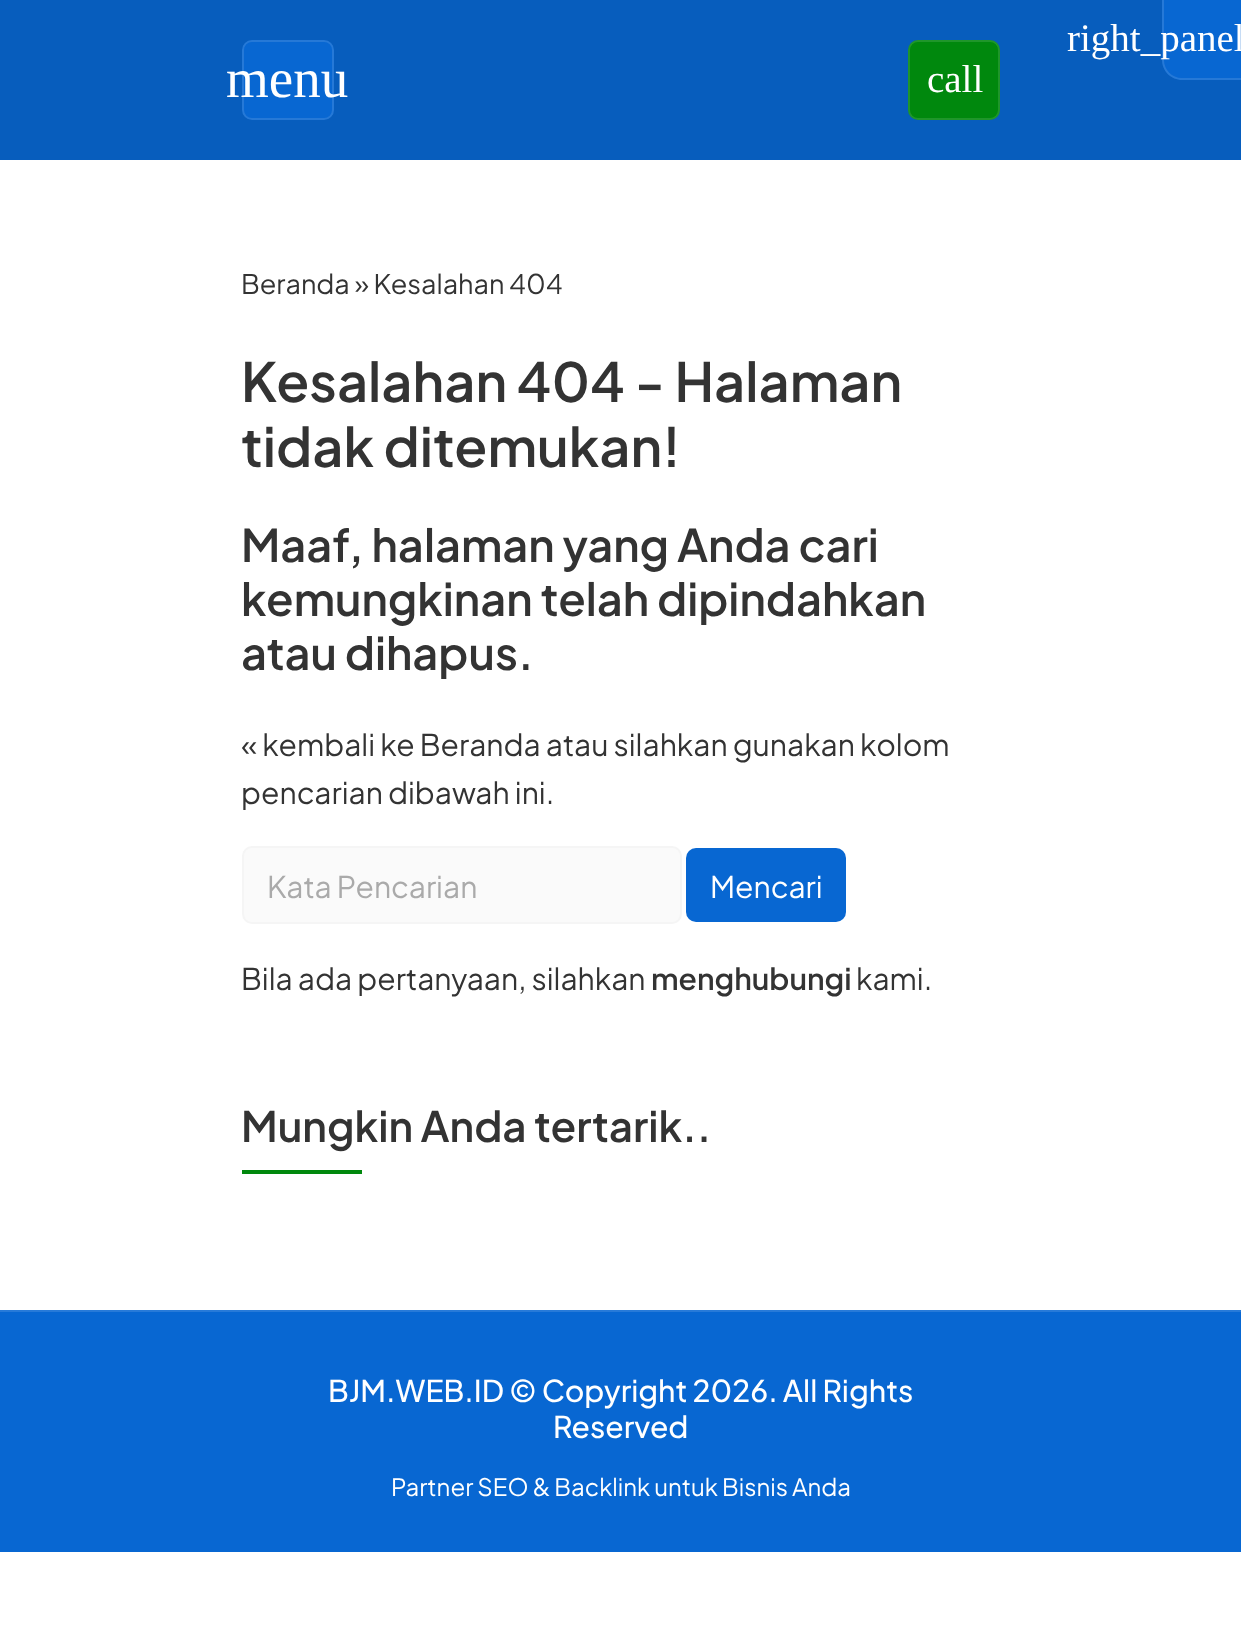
(async () => {
    const canvas = document.querySelector("canvas");
    canvas.width = 1241;
    canvas.height = 1638;
    const context = canvas.getContext("2d");
    context.miterLimit = 4;
    context.fontKerning = "normal";
    function write(s, x, y, font, color) {
        context.font = font;
        context.fillStyle = color;
        context.fillText(s, x, y);
    }
    function block(x, y, w, h, color) {
        context.fillStyle = color;
        context.fillRect(x, y, w, h);
    }
    function card(x, y, w, h, r, color) {
        context.fillStyle = color;
        context.beginPath();
        context.roundRect(x, y, w, h, r);
        context.fill();
    }

    block(0, 0, 1241, 1638, "rgb(255, 255, 255)");
    block(0, 0, 1241, 160, "rgb(7, 93, 189)");
    context.fillStyle = "rgb(8, 103, 210)";
    context.beginPath();
    context.moveTo(1162, 0);
    context.lineTo(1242, 0);
    context.lineTo(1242, 80);
    context.lineTo(1182, 80);
    context.bezierCurveTo(1171, 80, 1162, 71, 1162, 60);
    context.closePath();
    context.fill();
    context.fillStyle = "rgba(255, 255, 255, 0.12)";
    context.beginPath();
    context.moveTo(1162, 0);
    context.lineTo(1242, 0);
    context.lineTo(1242, 80);
    context.lineTo(1182, 80);
    context.bezierCurveTo(1171, 80, 1162, 71, 1162, 60);
    context.closePath();
    context.moveTo(1164, 0);
    context.lineTo(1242, 0);
    context.lineTo(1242, 78);
    context.lineTo(1182, 78);
    context.bezierCurveTo(1172, 78, 1164, 70, 1164, 60);
    context.closePath();
    context.fill("evenodd");
    write("right_panel", 1067, 51, "39px Liberation Serif", "rgb(255, 255, 255)");
    write("Beranda » Kesalahan 404", 241, 294, "27px Plus Jakarta Sans", "rgb(51, 51, 51)");
    write("Kesalahan 404 - Halaman", 241, 402, "600 54px Plus Jakarta Sans", "rgb(51, 51, 51)");
    write("tidak ditemukan!", 241, 467, "600 54px Plus Jakarta Sans", "rgb(51, 51, 51)");
    write("Maaf, halaman yang Anda cari", 241, 562, "600 45px Plus Jakarta Sans", "rgb(51, 51, 51)");
    write("kemungkinan telah dipindahkan", 241, 616, "600 45px Plus Jakarta Sans", "rgb(51, 51, 51)");
    write("atau dihapus.", 241, 670, "600 45px Plus Jakarta Sans", "rgb(51, 51, 51)");
    write("« kembali ke Beranda atau silahkan gunakan kolom", 241, 756, "30px Plus Jakarta Sans", "rgb(51, 51, 51)");
    write("pencarian dibawah ini.", 241, 804, "30px Plus Jakarta Sans", "rgb(51, 51, 51)");
    context.fillStyle = "rgb(250, 250, 250)";
    context.beginPath();
    context.roundRect(243, 847, 438, 76, 9);
    context.fill();
    context.strokeStyle = "rgb(245, 245, 245)";
    context.lineWidth = 2;
    context.stroke();
    write("Kata Pencarian", 267, 898, "30px Plus Jakarta Sans", "rgb(170, 170, 170)");
    card(686, 848, 160, 74, 10, "rgb(8, 103, 210)");
    write("Mencari", 710, 898, "30px Plus Jakarta Sans", "rgb(255, 255, 255)");
    write("Bila ada pertanyaan, silahkan", 241, 990, "30px Plus Jakarta Sans", "rgb(51, 51, 51)");
    write("menghubungi", 651, 990, "600 30px Plus Jakarta Sans", "rgb(51, 51, 51)");
    write("kami.", 856, 990, "30px Plus Jakarta Sans", "rgb(51, 51, 51)");
    write("Mungkin Anda tertarik..", 241, 1142, "600 42px Plus Jakarta Sans", "rgb(51, 51, 51)");
    block(242, 1170, 120, 4, "rgb(0, 136, 13)");
    card(242, 40, 92, 80, 10, "rgb(8, 103, 210)");
    context.beginPath();
    context.roundRect(243, 41, 90, 78, 9);
    context.strokeStyle = "rgba(255, 255, 255, 0.12)";
    context.stroke();
    write("menu", 226, 97, "55px Liberation Serif", "rgb(255, 255, 255)");
    card(908, 40, 92, 80, 10, "rgb(0, 136, 13)");
    context.beginPath();
    context.roundRect(909, 41, 90, 78, 9);
    context.stroke();
    write("call", 927, 92, "39px Liberation Serif", "rgb(255, 255, 255)");
    block(0, 1312, 1241, 240, "rgb(8, 103, 210)");
    block(0, 1310, 1241, 2, "rgb(39, 122, 216)");
    write("BJM.WEB.ID © Copyright 2026. All Rights", 328, 1402, "500 30px Plus Jakarta Sans", "rgb(255, 255, 255)");
    write("Reserved", 553, 1438, "500 30px Plus Jakarta Sans", "rgb(255, 255, 255)");
    write("Partner SEO & Backlink untuk Bisnis Anda", 391, 1496, "24px Plus Jakarta Sans", "rgb(255, 255, 255)");
})();
